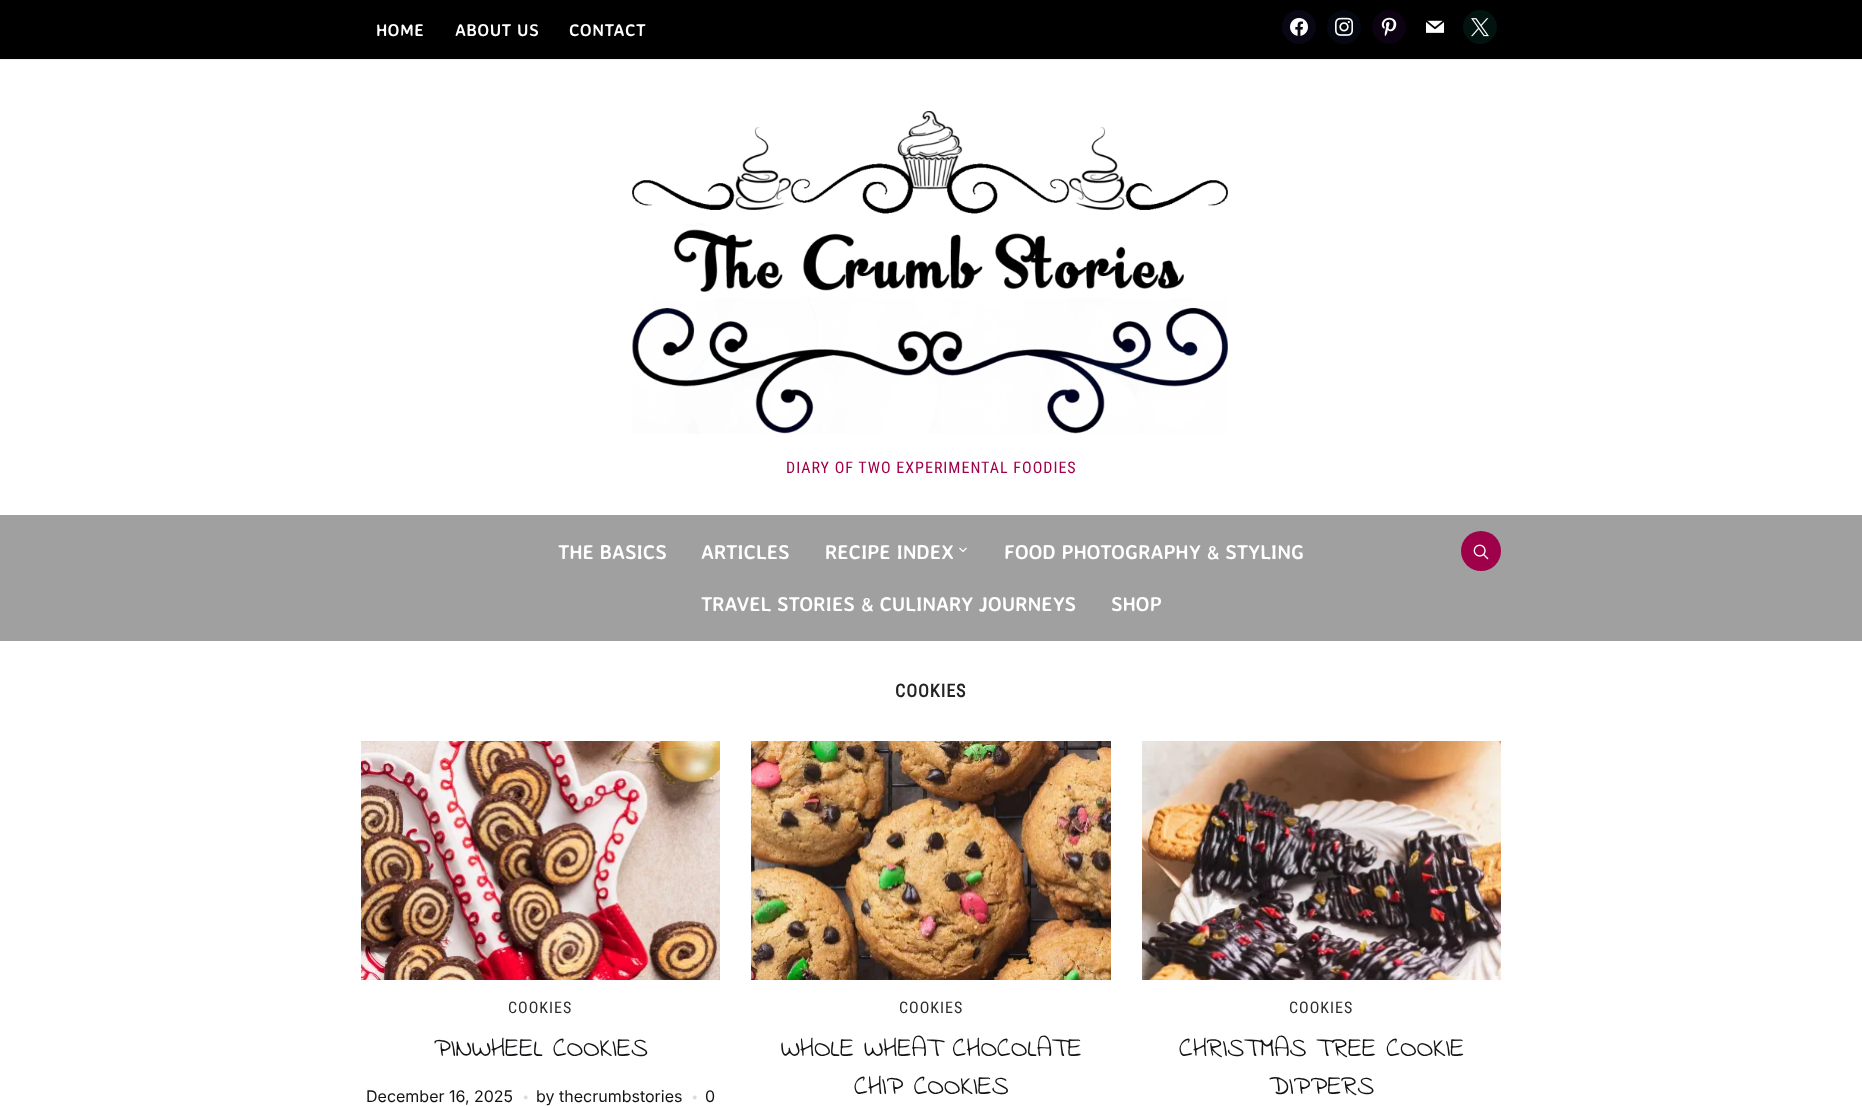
(async () => {
    const canvas = document.querySelector("canvas");
    canvas.width = 1862;
    canvas.height = 1106;
    const context = canvas.getContext("2d");
    context.miterLimit = 4;
    context.fontKerning = "normal";
    function write(s, x, y, font, color) {
        context.font = font;
        context.fillStyle = color;
        context.fillText(s, x, y);
    }
    function block(x, y, w, h, color) {
        context.fillStyle = color;
        context.fillRect(x, y, w, h);
    }
    async function photo(src, x, y, w, h) {
        const img = new Image();
        img.src = src;
        await img.decode();
        context.drawImage(img, x, y, w, h);
    }

    block(0, 0, 1862, 1106, "rgb(255, 255, 255)");
    block(0, 0, 1862, 59, "rgb(0, 0, 0)");
    block(0, 59, 1862, 1, "rgb(240, 240, 240)");
    context.letterSpacing = "0.5px";
    write("HOME", 376, 36, "bold 17px Averia Sans Libre", "rgb(255, 255, 255)");
    write("ABOUT US", 455, 36, "bold 17px Averia Sans Libre", "rgb(255, 255, 255)");
    write("CONTACT", 569, 36, "bold 17px Averia Sans Libre", "rgb(255, 255, 255)");
    context.fillStyle = "rgb(9, 7, 20)";
    context.beginPath();
    context.arc(1299, 27, 17, 0, Math.PI * 2);
    context.fill();
    await photo("media/1.png", 1290, 18, 18, 18);
    context.fillStyle = "rgb(4, 9, 17)";
    context.beginPath();
    context.arc(1344, 27, 17, 0, Math.PI * 2);
    context.fill();
    await photo("media/2.png", 1335, 17, 18, 19);
    context.fillStyle = "rgb(13, 2, 17)";
    context.beginPath();
    context.arc(1389, 27, 17, 0, Math.PI * 2);
    context.fill();
    await photo("media/3.png", 1381, 17, 16, 19);
    await photo("media/4.png", 1426, 20, 19, 13);
    context.fillStyle = "rgb(2, 20, 16)";
    context.beginPath();
    context.arc(1480, 27, 17, 0, Math.PI * 2);
    context.fill();
    await photo("media/5.png", 1471, 18, 18, 19);
    await photo("media/6.png", 632, 111, 596, 323);
    context.letterSpacing = "1px";
    write("DIARY OF TWO EXPERIMENTAL FOODIES", 786, 473, "16px Roboto Condensed", "rgb(158, 0, 73)");
    block(0, 515, 1862, 126, "rgb(160, 160, 160)");
    context.letterSpacing = "0px";
    write("THE BASICS", 558, 559, "bold 20px Averia Sans Libre", "rgb(255, 255, 255)");
    write("ARTICLES", 701, 559, "bold 20px Averia Sans Libre", "rgb(255, 255, 255)");
    write("RECIPE INDEX", 825, 559, "bold 20px Averia Sans Libre", "rgb(255, 255, 255)");
    await photo("media/7.png", 959, 547, 8, 6);
    write("FOOD PHOTOGRAPHY & STYLING", 1004, 559, "bold 20px Averia Sans Libre", "rgb(255, 255, 255)");
    write("TRAVEL STORIES & CULINARY JOURNEYS", 701, 611, "bold 20px Averia Sans Libre", "rgb(255, 255, 255)");
    write("SHOP", 1111, 611, "bold 20px Averia Sans Libre", "rgb(255, 255, 255)");
    context.fillStyle = "rgb(158, 0, 73)";
    context.beginPath();
    context.arc(1481, 551, 20, 0, Math.PI * 2);
    context.fill();
    await photo("media/8.png", 1473, 544, 16, 16);
    context.letterSpacing = "1px";
    write("COOKIES", 895, 697, "bold 18px Roboto Condensed", "rgb(34, 34, 34)");
    await photo("media/9.png", 361, 741, 359, 239);
    write("COOKIES", 508, 1013, "16px Roboto Condensed", "rgb(43, 43, 43)");
    context.letterSpacing = "0px";
    write("PINWHEEL COOKIES", 434, 1056, "27px Indie Flower", "rgb(19, 19, 22)");
    write("December 16, 2025", 366, 1102, "16px Inter", "rgb(19, 19, 22)");
    write("●", 523, 1100, "9px Liberation Sans", "rgb(219, 221, 221)");
    write("by", 536, 1102, "16px Inter", "rgb(19, 19, 22)");
    write("thecrumbstories", 559, 1102, "16px Inter", "rgb(19, 19, 22)");
    write("●", 692, 1100, "9px Liberation Sans", "rgb(219, 221, 221)");
    write("0", 705, 1102, "16px Inter", "rgb(19, 19, 22)");
    await photo("media/10.png", 751, 741, 360, 239);
    context.letterSpacing = "1px";
    write("COOKIES", 899, 1013, "16px Roboto Condensed", "rgb(43, 43, 43)");
    context.letterSpacing = "0px";
    write("WHOLE WHEAT CHOCOLATE", 781, 1056, "27px Indie Flower", "rgb(19, 19, 22)");
    write("CHIP COOKIES", 854, 1094, "27px Indie Flower", "rgb(19, 19, 22)");
    await photo("media/11.png", 1142, 741, 359, 239);
    context.letterSpacing = "1px";
    write("COOKIES", 1289, 1013, "16px Roboto Condensed", "rgb(43, 43, 43)");
    context.letterSpacing = "0px";
    write("CHRISTMAS TREE COOKIE", 1179, 1056, "27px Indie Flower", "rgb(19, 19, 22)");
    write("DIPPERS", 1269, 1094, "27px Indie Flower", "rgb(19, 19, 22)");
})();
